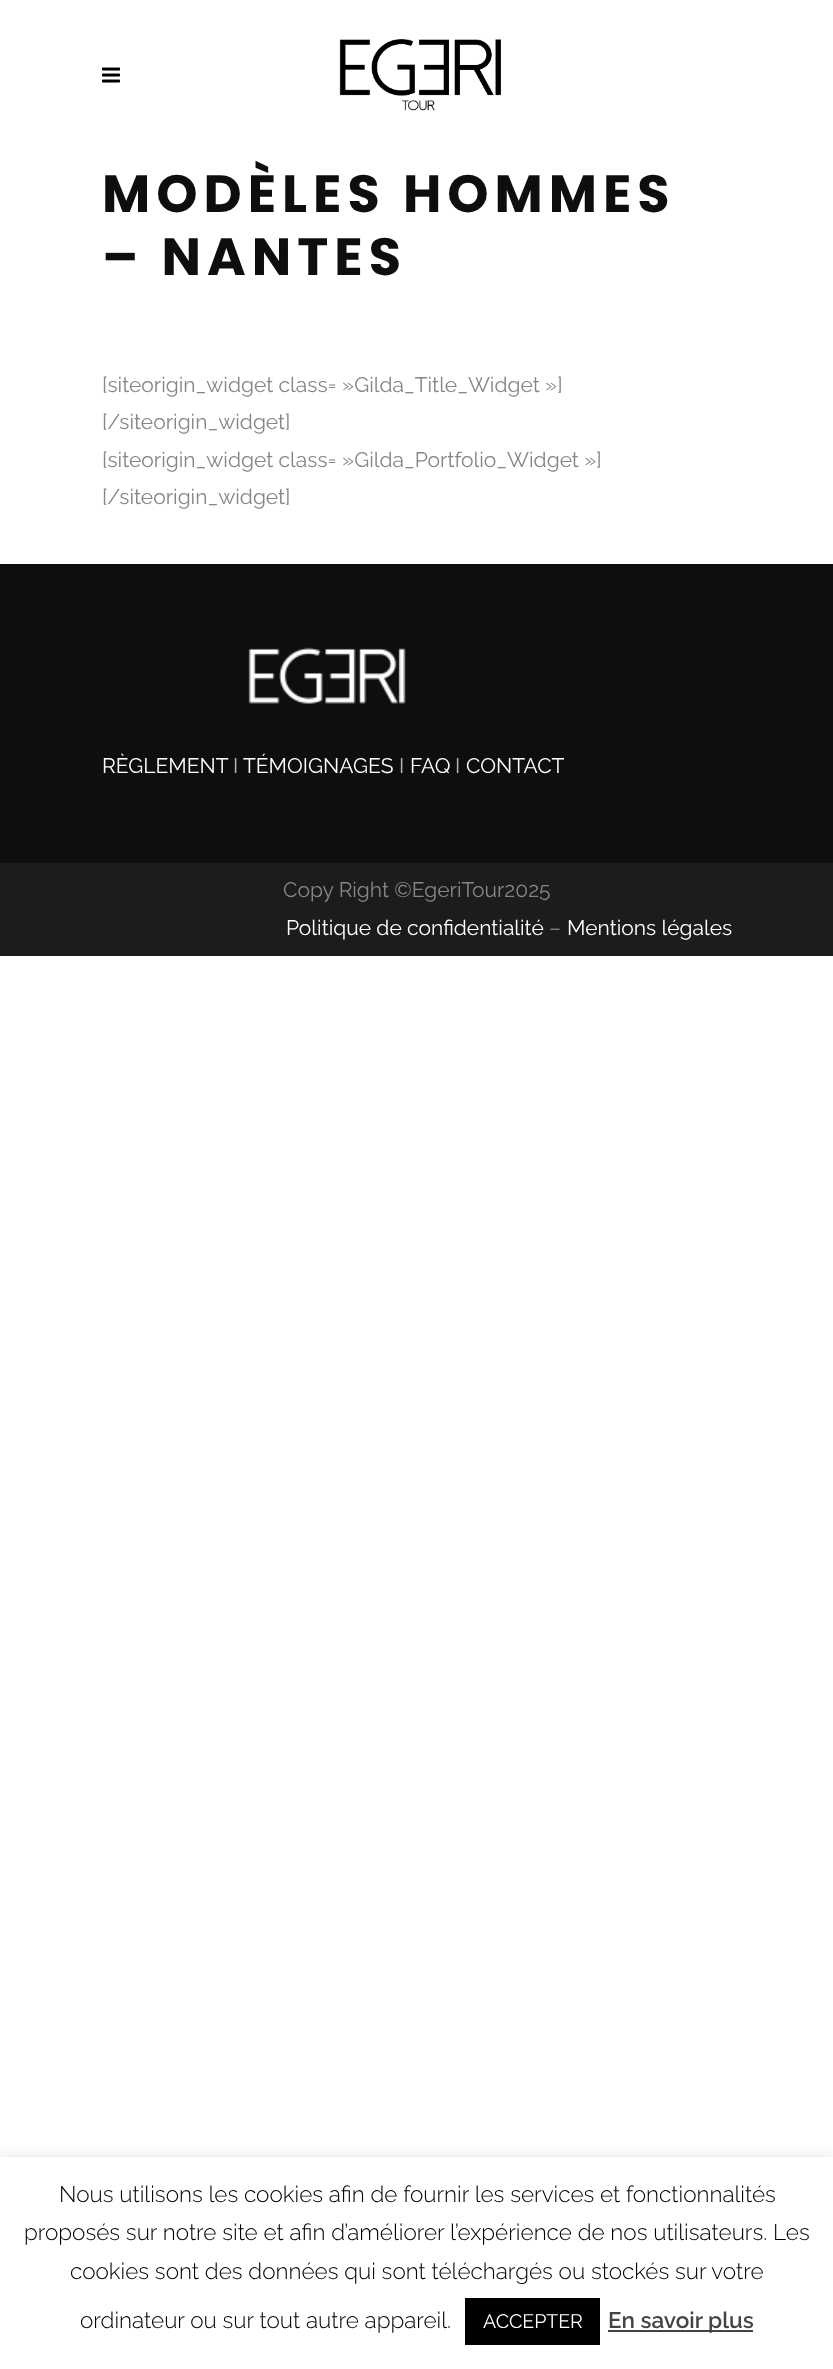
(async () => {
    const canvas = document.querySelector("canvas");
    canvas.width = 833;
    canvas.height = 2369;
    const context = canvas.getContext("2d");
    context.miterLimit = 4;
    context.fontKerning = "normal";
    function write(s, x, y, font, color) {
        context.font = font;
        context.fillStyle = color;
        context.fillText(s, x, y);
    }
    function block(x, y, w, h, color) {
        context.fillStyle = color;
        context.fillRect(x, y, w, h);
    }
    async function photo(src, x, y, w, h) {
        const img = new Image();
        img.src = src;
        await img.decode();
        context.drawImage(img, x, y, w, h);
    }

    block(0, 0, 833, 2369, "rgb(255, 255, 255)");
    await photo("media/1.png", 102, 67, 18, 16);
    await photo("media/2.png", 339, 39, 162, 72);
    context.letterSpacing = "6px";
    write("MODÈLES HOMMES", 102, 212, "bold 52.5px Poppins", "rgb(14, 14, 14)");
    write("– NANTES", 102, 275, "bold 52.5px Poppins", "rgb(14, 14, 14)");
    context.letterSpacing = "0px";
    write("[siteorigin_widget class= »Gilda_Title_Widget »]", 102, 392, "21px Raleway", "rgb(134, 134, 134)");
    write("[/siteorigin_widget]", 102, 429, "21px Raleway", "rgb(134, 134, 134)");
    write("[siteorigin_widget class= »Gilda_Portfolio_Widget »]", 102, 467, "21px Raleway", "rgb(134, 134, 134)");
    write("[/siteorigin_widget]", 102, 504, "21px Raleway", "rgb(134, 134, 134)");
    block(0, 564, 833, 299, "rgb(14, 14, 14)");
    await photo("media/3.png", 248, 647, 158, 57);
    write("RÈGLEMENT", 102, 773, "21px Raleway", "rgb(255, 255, 255)");
    write("I", 233, 773, "21px Raleway", "rgb(183, 183, 183)");
    write("TÉMOIGNAGES", 243, 773, "21px Raleway", "rgb(255, 255, 255)");
    write("I", 399, 773, "21px Raleway", "rgb(183, 183, 183)");
    write("FAQ", 410, 773, "21px Raleway", "rgb(255, 255, 255)");
    write("I", 455, 773, "21px Raleway", "rgb(183, 183, 183)");
    write("CONTACT", 466, 773, "21px Raleway", "rgb(255, 255, 255)");
    block(0, 863, 833, 93, "rgb(28, 28, 28)");
    write("Copy Right ©EgeriTour2025", 283, 897, "21px Raleway", "rgb(134, 134, 134)");
    write("Politique de confidentialité", 286, 935, "21px Raleway", "rgb(255, 255, 255)");
    write("–", 549, 935, "21px Raleway", "rgb(134, 134, 134)");
    write("Mentions légales", 567, 935, "21px Raleway", "rgb(255, 255, 255)");
    context.save();
    context.beginPath();
    context.rect(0, 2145, 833, 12);
    context.clip();
    context.fillStyle = "rgba(172, 171, 171, 0.3)";
    context.filter = "blur(7.5px)";
    context.beginPath();
    context.rect(0, 2156, 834, 213);
    context.fill();
    context.filter = "none";
    context.restore();
    write("Nous utilisons les cookies afin de fournir les services et fonctionnalités", 59, 2202, "300 22.5px Raleway", "rgb(0, 0, 0)");
    write("proposés sur notre site et afin d’améliorer l’expérience de nos utilisateurs. Les", 24, 2240, "300 22.5px Raleway", "rgb(0, 0, 0)");
    write("cookies sont des données qui sont téléchargés ou stockés sur votre", 70, 2279, "300 22.5px Raleway", "rgb(0, 0, 0)");
    write("ordinateur ou sur tout autre appareil.", 80, 2328, "300 22.5px Raleway", "rgb(0, 0, 0)");
    block(465, 2298, 135, 47, "rgb(0, 0, 0)");
    write("ACCEPTER", 483, 2328, "19.5px Raleway", "rgb(255, 255, 255)");
    block(608, 2330, 145, 2, "rgb(68, 68, 68)");
    write("En savoir plus", 608, 2328, "600 22.5px Raleway", "rgb(68, 68, 68)");
})();
